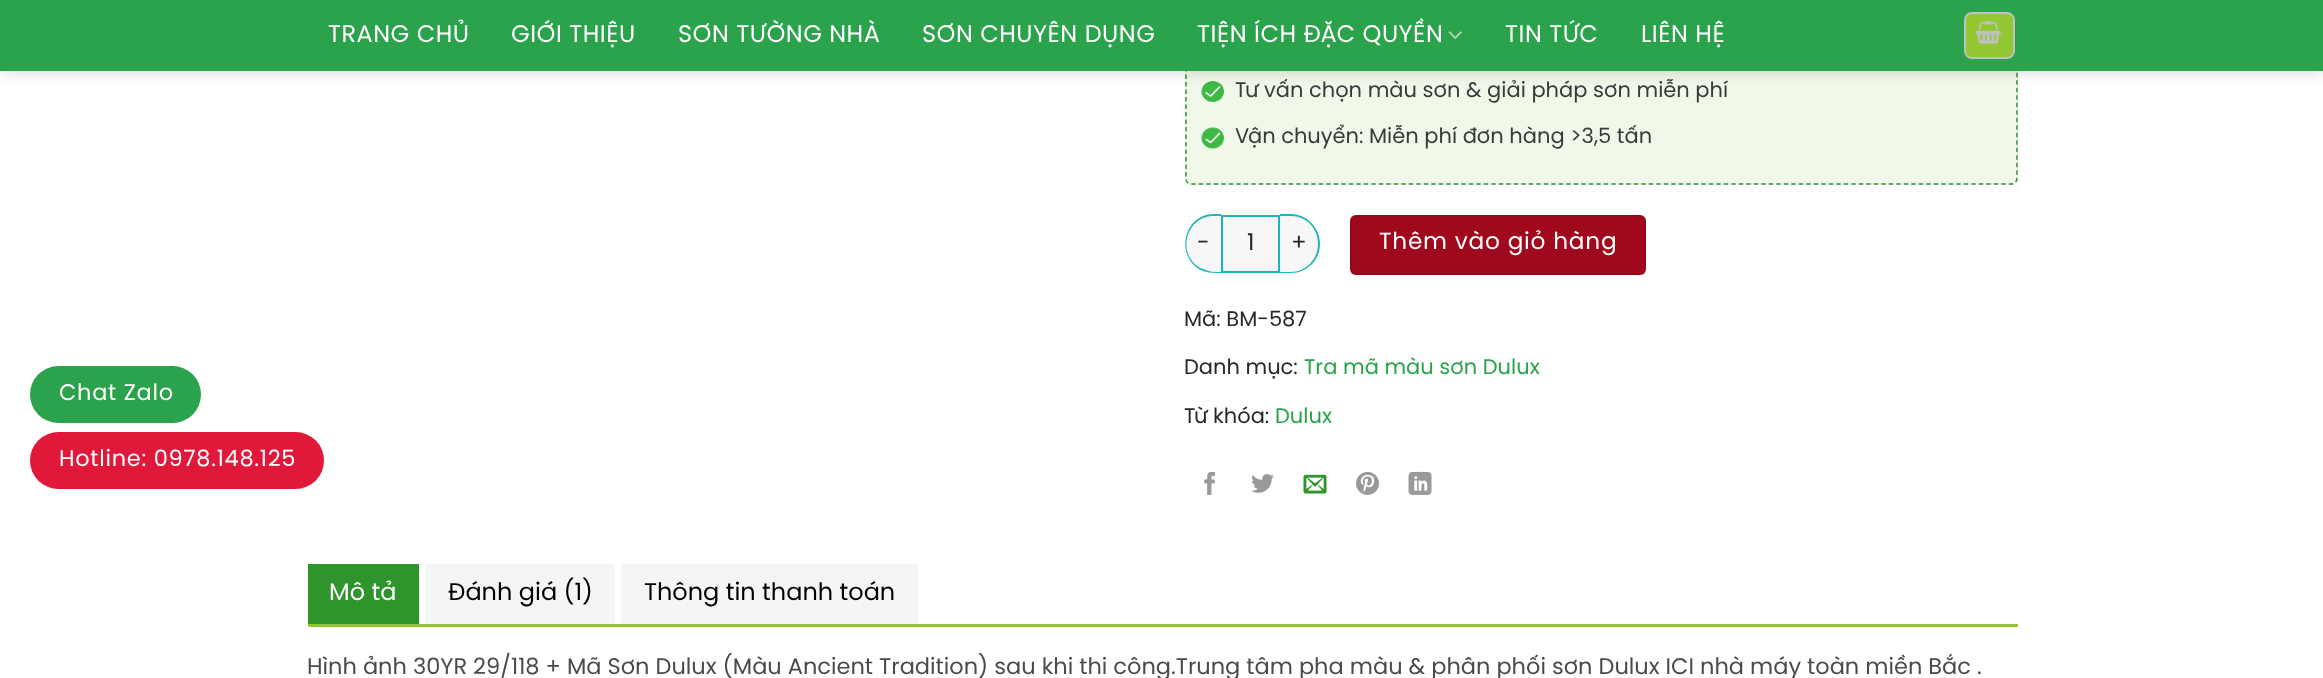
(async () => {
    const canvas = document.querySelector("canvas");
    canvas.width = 2323;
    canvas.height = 678;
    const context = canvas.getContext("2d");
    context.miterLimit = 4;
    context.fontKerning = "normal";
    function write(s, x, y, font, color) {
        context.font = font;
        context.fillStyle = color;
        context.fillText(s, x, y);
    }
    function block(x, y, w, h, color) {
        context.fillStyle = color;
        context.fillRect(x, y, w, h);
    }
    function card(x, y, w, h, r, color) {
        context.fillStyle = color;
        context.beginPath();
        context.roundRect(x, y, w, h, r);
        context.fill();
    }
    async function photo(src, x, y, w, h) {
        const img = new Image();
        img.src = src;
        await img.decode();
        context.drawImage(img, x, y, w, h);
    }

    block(0, 0, 2323, 678, "rgb(255, 255, 255)");
    card(30, 366, 171, 57, 28.5, "rgb(43, 162, 76)");
    context.letterSpacing = "0.7px";
    write("Chat Zalo", 59, 400, "22.5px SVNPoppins", "rgb(255, 255, 255)");
    card(30, 432, 294, 57, 28.5, "rgb(224, 25, 59)");
    write("Hotline: 0978.148.125", 59, 466, "22.5px SVNPoppins", "rgb(255, 255, 255)");
    card(1185, -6, 833, 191, 6, "rgb(241, 248, 233)");
    context.beginPath();
    context.moveTo(1191, -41);
    context.lineTo(2011.5, -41);
    context.bezierCurveTo(2014.5, -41, 2017, -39, 2017, -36);
    context.lineTo(2017, 178.5);
    context.bezierCurveTo(2017, 181.5, 2014.5, 184, 2011.5, 184);
    context.lineTo(1191, 184);
    context.bezierCurveTo(1188, 184, 1186, 181.5, 1186, 178.5);
    context.lineTo(1186, -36);
    context.bezierCurveTo(1186, -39, 1188, -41, 1191, -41);
    context.closePath();
    context.strokeStyle = "rgb(46, 148, 43)";
    context.lineWidth = 1.5;
    context.setLineDash([4.5, 3]);
    context.stroke();
    await photo("media/3.png", 1201, 81, 23, 21);
    context.fillStyle = "rgba(0, 0, 0, 0.15)";
    context.filter = "blur(7.5px)";
    context.beginPath();
    context.rect(2, 2, 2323, 70);
    context.fill();
    context.filter = "none";
    block(0, 0, 2323, 71, "rgb(43, 162, 76)");
    context.letterSpacing = "0.5px";
    write("TRANG CHỦ", 328, 42, "24px SVNPoppins", "rgb(255, 255, 255)");
    write("GIỚI THIỆU", 511, 42, "24px SVNPoppins", "rgb(255, 255, 255)");
    write("SƠN TƯỜNG NHÀ", 678, 42, "24px SVNPoppins", "rgb(255, 255, 255)");
    write("SƠN CHUYÊN DỤNG", 922, 42, "24px SVNPoppins", "rgb(255, 255, 255)");
    write("TIỆN ÍCH ĐẶC QUYỀN", 1197, 42, "24px SVNPoppins", "rgb(255, 255, 255)");
    await photo("media/1.png", 1448, 31, 14, 8);
    write("TIN TỨC", 1505, 42, "24px SVNPoppins", "rgb(255, 255, 255)");
    write("LIÊN HỆ", 1641, 42, "24px SVNPoppins", "rgb(255, 255, 255)");
    context.fillStyle = "rgb(148, 199, 52)";
    context.beginPath();
    context.roundRect(1965, 13, 49, 45, 7);
    context.fill();
    context.strokeStyle = "rgb(192, 192, 192)";
    context.lineWidth = 2;
    context.setLineDash([]);
    context.stroke();
    await photo("media/2.png", 1975, 21, 26, 23);
    context.letterSpacing = "0px";
    write("Tư vấn chọn màu sơn & giải pháp sơn miễn phí", 1235, 97, "21px SVNPoppins", "rgb(58, 58, 58)");
    await photo("media/4.png", 1201, 127, 23, 22);
    write("Vận chuyển: Miễn phí đơn hàng >3,5 tấn", 1235, 143, "21px SVNPoppins", "rgb(58, 58, 58)");
    context.fillStyle = "rgb(247, 247, 247)";
    context.beginPath();
    context.roundRect(1185, 215, 36, 58, [29, 0, 0, 29]);
    context.fill();
    context.fillStyle = "rgb(29, 182, 183)";
    context.beginPath();
    context.moveTo(1214, 214);
    context.lineTo(1221, 214);
    context.lineTo(1221, 273);
    context.bezierCurveTo(1215, 273, 1209, 273, 1203, 271);
    context.bezierCurveTo(1174, 258, 1183, 214, 1214, 214);
    context.closePath();
    context.moveTo(1214, 216);
    context.lineTo(1221, 216);
    context.lineTo(1221, 272);
    context.bezierCurveTo(1215, 272, 1209, 272, 1203, 269);
    context.bezierCurveTo(1176, 258, 1184, 216, 1214, 216);
    context.closePath();
    context.fill("evenodd");
    context.letterSpacing = "0.7px";
    write("-", 1197, 250, "23px SVNPoppins", "rgb(40, 40, 40)");
    context.fillStyle = "rgb(247, 247, 247)";
    context.beginPath();
    context.rect(1222, 216, 57, 56);
    context.fill();
    context.strokeStyle = "rgb(29, 182, 183)";
    context.stroke();
    context.letterSpacing = "0px";
    write("1", 1247, 250, "23.25px SVNPoppins", "rgb(40, 40, 40)");
    context.fillStyle = "rgb(247, 247, 247)";
    context.beginPath();
    context.roundRect(1280, 215, 40, 58, [0, 29, 29, 0]);
    context.fill();
    context.fillStyle = "rgb(29, 182, 183)";
    context.beginPath();
    context.moveTo(1280, 214);
    context.lineTo(1291, 214);
    context.bezierCurveTo(1307, 214, 1320, 228, 1320, 244);
    context.bezierCurveTo(1320, 260, 1307, 273, 1291, 273);
    context.lineTo(1280, 273);
    context.closePath();
    context.moveTo(1280, 216);
    context.lineTo(1291, 216);
    context.bezierCurveTo(1306, 216, 1318, 228, 1318, 244);
    context.bezierCurveTo(1318, 259, 1306, 272, 1291, 272);
    context.lineTo(1280, 272);
    context.closePath();
    context.fill("evenodd");
    context.letterSpacing = "0.7px";
    write("+", 1291, 250, "23px SVNPoppins", "rgb(40, 40, 40)");
    card(1350, 215, 296, 60, 6, "rgb(160, 8, 29)");
    context.strokeStyle = "rgba(0, 0, 0, 0.05)";
    context.strokeRect(1351, 216, 294, 58);
    context.letterSpacing = "0.75px";
    write("Thêm vào giỏ hàng", 1379, 249, "23.25px SVNPoppins", "rgb(255, 255, 255)");
    context.letterSpacing = "0px";
    write("Mã: BM-587", 1184, 326, "21px SVNPoppins", "rgb(40, 40, 40)");
    write("Danh mục:", 1184, 374, "21px SVNPoppins", "rgb(40, 40, 40)");
    write("Tra mã màu sơn Dulux", 1304, 374, "21px SVNPoppins", "rgb(43, 162, 76)");
    write("Từ khóa:", 1184, 423, "21px SVNPoppins", "rgb(40, 40, 40)");
    write("Dulux", 1275, 423, "21px SVNPoppins", "rgb(43, 162, 76)");
    await photo("media/5.png", 1204, 471, 11, 24);
    await photo("media/6.png", 1251, 474, 23, 19);
    await photo("media/7.png", 1303, 474, 24, 20);
    await photo("media/8.png", 1356, 471, 23, 24);
    await photo("media/9.png", 1408, 471, 24, 24);
    block(308, 624, 1710, 3, "rgb(148, 199, 52)");
    block(308, 564, 111, 60, "rgb(46, 148, 43)");
    write("Mô tả", 329, 600, "24px SVNPoppins", "rgb(255, 255, 255)");
    block(425, 564, 190, 60, "rgb(245, 245, 245)");
    write("Đánh giá (1)", 448, 600, "24px SVNPoppins", "rgb(0, 0, 0)");
    block(621, 564, 297, 60, "rgb(245, 245, 245)");
    write("Thông tin thanh toán", 644, 600, "24px SVNPoppins", "rgb(0, 0, 0)");
    write("Hình ảnh 30YR 29/118 + Mã Sơn Dulux (Màu Ancient Tradition) sau khi thi công.Trung tâm pha màu & phân phối sơn Dulux ICI nhà máy toàn miền Bắc .", 307, 674, "22.5px SVNPoppins", "rgb(74, 74, 74)");
})();
